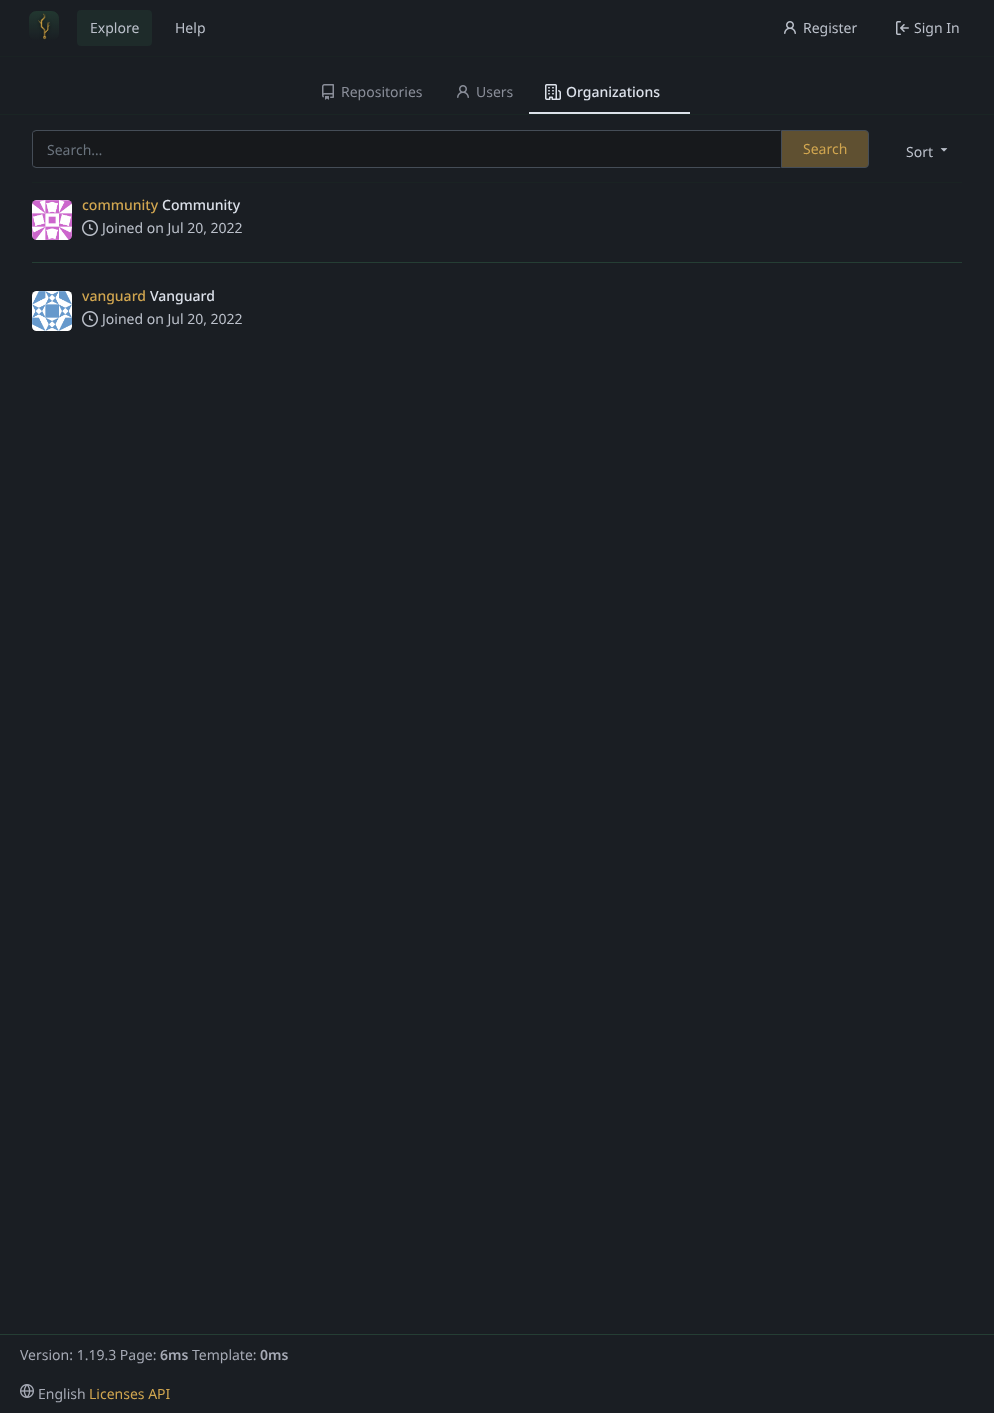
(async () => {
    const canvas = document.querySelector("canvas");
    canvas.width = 994;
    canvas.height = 1413;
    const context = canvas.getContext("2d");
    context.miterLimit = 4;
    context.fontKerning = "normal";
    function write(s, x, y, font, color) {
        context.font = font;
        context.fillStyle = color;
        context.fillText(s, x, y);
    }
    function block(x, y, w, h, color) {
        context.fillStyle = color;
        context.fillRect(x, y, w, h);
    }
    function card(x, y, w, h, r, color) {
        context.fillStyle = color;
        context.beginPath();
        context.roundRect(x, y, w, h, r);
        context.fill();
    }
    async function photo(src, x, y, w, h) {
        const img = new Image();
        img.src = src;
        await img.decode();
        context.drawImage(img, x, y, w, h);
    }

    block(0, 0, 994, 1413, "rgb(26, 30, 35)");
    block(0, 56, 994, 1, "rgb(26, 34, 35)");
    await photo("media/1.png", 29, 11, 30, 29);
    card(77, 10, 75, 36, 4, "rgb(30, 43, 42)");
    write("Explore", 90, 33, "14px Noto Sans", "rgb(187, 192, 202)");
    write("Help", 175, 33, "14px Noto Sans", "rgb(187, 192, 202)");
    await photo("media/2.png", 784, 21, 12, 13);
    write("Register", 803, 33, "14px Noto Sans", "rgb(187, 192, 202)");
    await photo("media/3.png", 896, 21, 13, 14);
    write("Sign In", 914, 33, "14px Noto Sans", "rgb(187, 192, 202)");
    block(0, 114, 994, 1, "rgb(26, 37, 36)");
    await photo("media/4.png", 322, 84, 12, 16);
    write("Repositories", 341, 97, "14px Noto Sans", "rgb(138, 142, 153)");
    await photo("media/5.png", 457, 85, 12, 13);
    write("Users", 476, 97, "14px Noto Sans", "rgb(138, 142, 153)");
    block(529, 112, 161, 2, "rgb(220, 225, 234)");
    await photo("media/6.png", 545, 84, 16, 16);
    write("Organizations", 566, 97, "500 14px Noto Sans", "rgb(220, 225, 234)");
    context.fillStyle = "rgb(23, 25, 28)";
    context.beginPath();
    context.roundRect(32, 130, 749, 38, [4, 0, 0, 4]);
    context.fill();
    context.fillStyle = "rgb(69, 77, 87)";
    context.beginPath();
    context.moveTo(36, 130);
    context.lineTo(33, 131);
    context.lineTo(34, 132);
    context.lineTo(36, 131);
    context.lineTo(780, 131);
    context.lineTo(781, 130);
    context.closePath();
    context.fill();
    context.beginPath();
    context.moveTo(781, 168);
    context.lineTo(780, 167);
    context.lineTo(36, 167);
    context.lineTo(34, 166);
    context.lineTo(33, 167);
    context.lineTo(36, 168);
    context.closePath();
    context.fill();
    context.beginPath();
    context.moveTo(32, 134);
    context.lineTo(32, 164);
    context.bezierCurveTo(32, 165, 32.5, 166, 33, 167);
    context.lineTo(34, 166);
    context.bezierCurveTo(33, 166, 33, 165, 33, 164);
    context.lineTo(33, 134);
    context.bezierCurveTo(33, 133, 33, 132, 34, 132);
    context.lineTo(33, 131);
    context.bezierCurveTo(32.5, 132, 32, 133, 32, 134);
    context.closePath();
    context.fill();
    write("Search…", 47, 155, "14px Noto Sans", "rgb(106, 115, 125)");
    context.fillStyle = "rgb(95, 80, 49)";
    context.beginPath();
    context.roundRect(781.5, 130.5, 87, 37, [0, 3.5, 3.5, 0]);
    context.fill();
    context.strokeStyle = "rgb(69, 77, 87)";
    context.stroke();
    write("Search", 803, 154, "14px Noto Sans", "rgb(209, 166, 80)");
    write("Sort", 906, 157, "14px Noto Sans", "rgb(187, 192, 202)");
    await photo("media/7.png", 940, 148, 8, 4);
    block(32, 182, 930, 1, "rgb(26, 35, 35)");
    await photo("media/8.png", 32, 200, 40, 40);
    write("community", 82, 210, "500 14px Noto Sans", "rgb(209, 166, 80)");
    write("Community", 162, 210, "500 14px Noto Sans", "rgb(220, 225, 234)");
    await photo("media/9.png", 82, 220, 16, 16);
    write("Joined on Jul 20, 2022", 102, 233, "14px Noto Sans", "rgb(187, 192, 202)");
    block(32, 262, 930, 1, "rgb(37, 62, 52)");
    await photo("media/10.png", 32, 291, 40, 40);
    write("vanguard", 82, 301, "500 14px Noto Sans", "rgb(209, 166, 80)");
    write("Vanguard", 150, 301, "500 14px Noto Sans", "rgb(220, 225, 234)");
    await photo("media/9.png", 82, 311, 16, 16);
    write("Joined on Jul 20, 2022", 102, 324, "14px Noto Sans", "rgb(187, 192, 202)");
    block(0, 1334, 994, 1, "rgb(37, 62, 52)");
    write("Version: 1.19.3 Page:", 20, 1360, "14px Noto Sans", "rgb(166, 170, 181)");
    write("6ms", 160, 1360, "600 14px Noto Sans", "rgb(166, 170, 181)");
    write("Template:", 192, 1360, "14px Noto Sans", "rgb(166, 170, 181)");
    write("0ms", 260, 1360, "600 14px Noto Sans", "rgb(166, 170, 181)");
    await photo("media/11.png", 20, 1384, 14, 14);
    write("English", 38, 1399, "14px Noto Sans", "rgb(166, 170, 181)");
    write("Licenses API", 89, 1399, "14px Noto Sans", "rgb(209, 166, 80)");
})();
